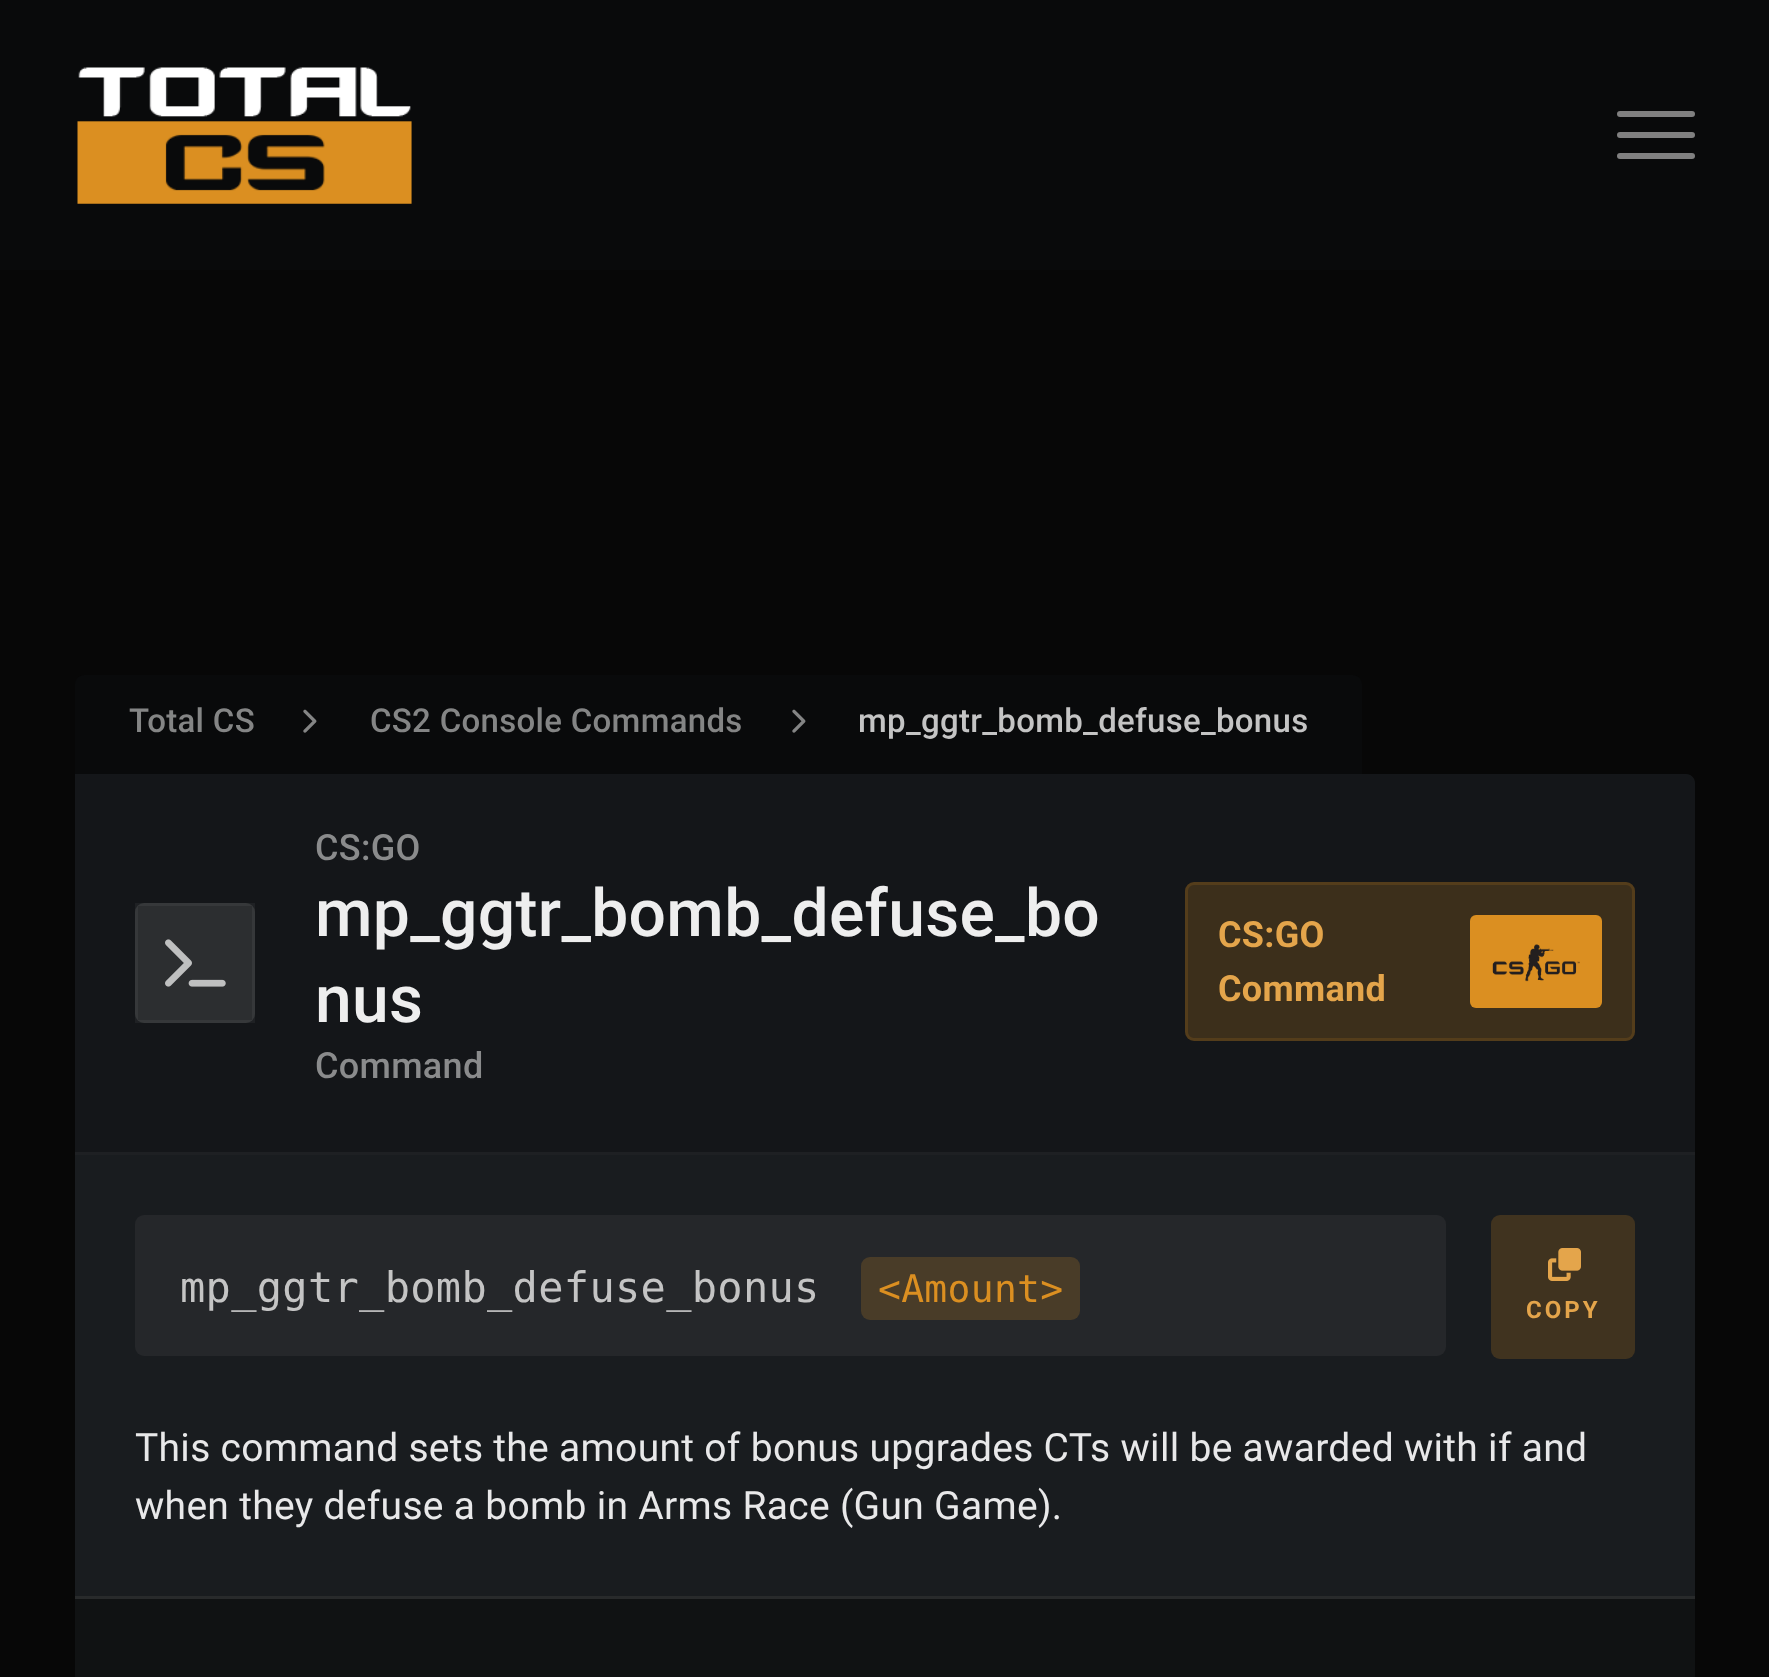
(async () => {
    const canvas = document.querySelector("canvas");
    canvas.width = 1769;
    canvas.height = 1677;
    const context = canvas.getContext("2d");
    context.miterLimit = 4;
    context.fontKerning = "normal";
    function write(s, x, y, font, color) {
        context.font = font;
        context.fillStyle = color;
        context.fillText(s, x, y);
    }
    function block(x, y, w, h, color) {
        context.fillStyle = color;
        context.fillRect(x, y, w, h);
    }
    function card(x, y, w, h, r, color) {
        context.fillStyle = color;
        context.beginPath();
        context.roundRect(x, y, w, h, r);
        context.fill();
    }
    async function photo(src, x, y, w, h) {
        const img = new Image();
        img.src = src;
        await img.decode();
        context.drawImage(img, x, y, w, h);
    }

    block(0, 0, 1769, 1677, "rgb(7, 7, 7)");
    block(0, 0, 1769, 270, "rgb(9, 10, 11)");
    await photo("media/1.png", 77, 67, 335, 137);
    card(1617, 111, 78, 6, 3, "rgb(128, 128, 128)");
    card(1617, 132, 78, 6, 3, "rgb(128, 128, 128)");
    card(1617, 153, 78, 6, 3, "rgb(128, 128, 128)");
    context.fillStyle = "rgb(9, 10, 11)";
    context.beginPath();
    context.roundRect(75, 675, 1287, 99, [9, 9, 0, 0]);
    context.fill();
    context.letterSpacing = "0.3px";
    write("Total CS", 129, 732, "500 33px Roboto", "rgb(132, 133, 133)");
    await photo("media/2.png", 303, 709, 14, 24);
    write("CS2 Console Commands", 370, 732, "500 33px Roboto", "rgb(132, 133, 133)");
    await photo("media/2.png", 792, 709, 14, 24);
    write("mp_ggtr_bomb_defuse_bonus", 858, 732, "500 33px Roboto", "rgb(196, 196, 196)");
    context.fillStyle = "rgb(25, 28, 31)";
    context.beginPath();
    context.moveTo(75, 774);
    context.lineTo(1686, 774);
    context.bezierCurveTo(1691, 774, 1695, 778, 1695, 783);
    context.lineTo(1695, 1677);
    context.bezierCurveTo(1695, 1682, 1691, 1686, 1686, 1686);
    context.lineTo(84, 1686);
    context.bezierCurveTo(79, 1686, 75, 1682, 75, 1677);
    context.closePath();
    context.fill();
    context.fillStyle = "rgba(0, 0, 0, 0.18)";
    context.beginPath();
    context.roundRect(75, 774, 1620, 381, [0, 9, 0, 0]);
    context.fill();
    block(75, 1152, 1620, 3, "rgb(30, 32, 35)");
    card(135, 903, 120, 120, 9, "rgb(44, 46, 48)");
    context.strokeStyle = "rgba(255, 255, 255, 0.05)";
    context.lineWidth = 3;
    context.strokeRect(136.5, 904.5, 117, 117);
    await photo("media/3.png", 165, 939, 61, 48);
    write("CS:GO", 315, 860, "500 36px Roboto", "rgb(138, 139, 140)");
    write("mp_ggtr_bomb_defuse_bo", 315, 936, "500 66px Roboto", "rgb(238, 238, 238)");
    write("nus", 315, 1022, "500 66px Roboto", "rgb(238, 238, 238)");
    write("Command", 315, 1078, "500 36px Roboto", "rgb(138, 139, 140)");
    card(1185, 882, 450, 159, 9, "rgb(60, 47, 27)");
    context.beginPath();
    context.roundRect(1186.5, 883.5, 447, 156, 7.5);
    context.strokeStyle = "rgba(219, 143, 33, 0.15)";
    context.stroke();
    write("CS:GO", 1218, 947, "bold 36px Roboto", "rgb(228, 165, 75)");
    write("Command", 1218, 1001, "bold 36px Roboto", "rgb(228, 165, 75)");
    card(1470, 915, 132, 93, 6, "rgb(219, 143, 33)");
    await photo("media/4.png", 1492, 944, 88, 38);
    card(135, 1215, 1311, 141, 9, "rgb(37, 39, 42)");
    write("mp_ggtr_bomb_defuse_bonus", 180, 1302, "42px DejaVu Sans Mono", "rgb(196, 196, 196)");
    card(861, 1257, 219, 63, 9, "rgb(73, 60, 40)");
    write("<Amount>", 878, 1302, "38px DejaVu Sans Mono", "rgb(219, 143, 33)");
    card(1491, 1215, 144, 144, 9, "rgb(64, 51, 31)");
    await photo("media/5.png", 1548, 1248, 33, 33);
    context.letterSpacing = "3px";
    write("COPY", 1526, 1318, "bold 24px Roboto", "rgb(228, 165, 75)");
    context.letterSpacing = "0.3px";
    write("This command sets the amount of bonus upgrades CTs will be awarded with if and", 135, 1461, "39px Roboto", "rgb(232, 232, 233)");
    write("when they defuse a bomb in Arms Race (Gun Game).", 135, 1519, "39px Roboto", "rgb(232, 232, 233)");
    block(75, 1599, 1620, 78, "rgb(16, 18, 19)");
    block(75, 1596, 1620, 3, "rgb(40, 42, 43)");
})();
